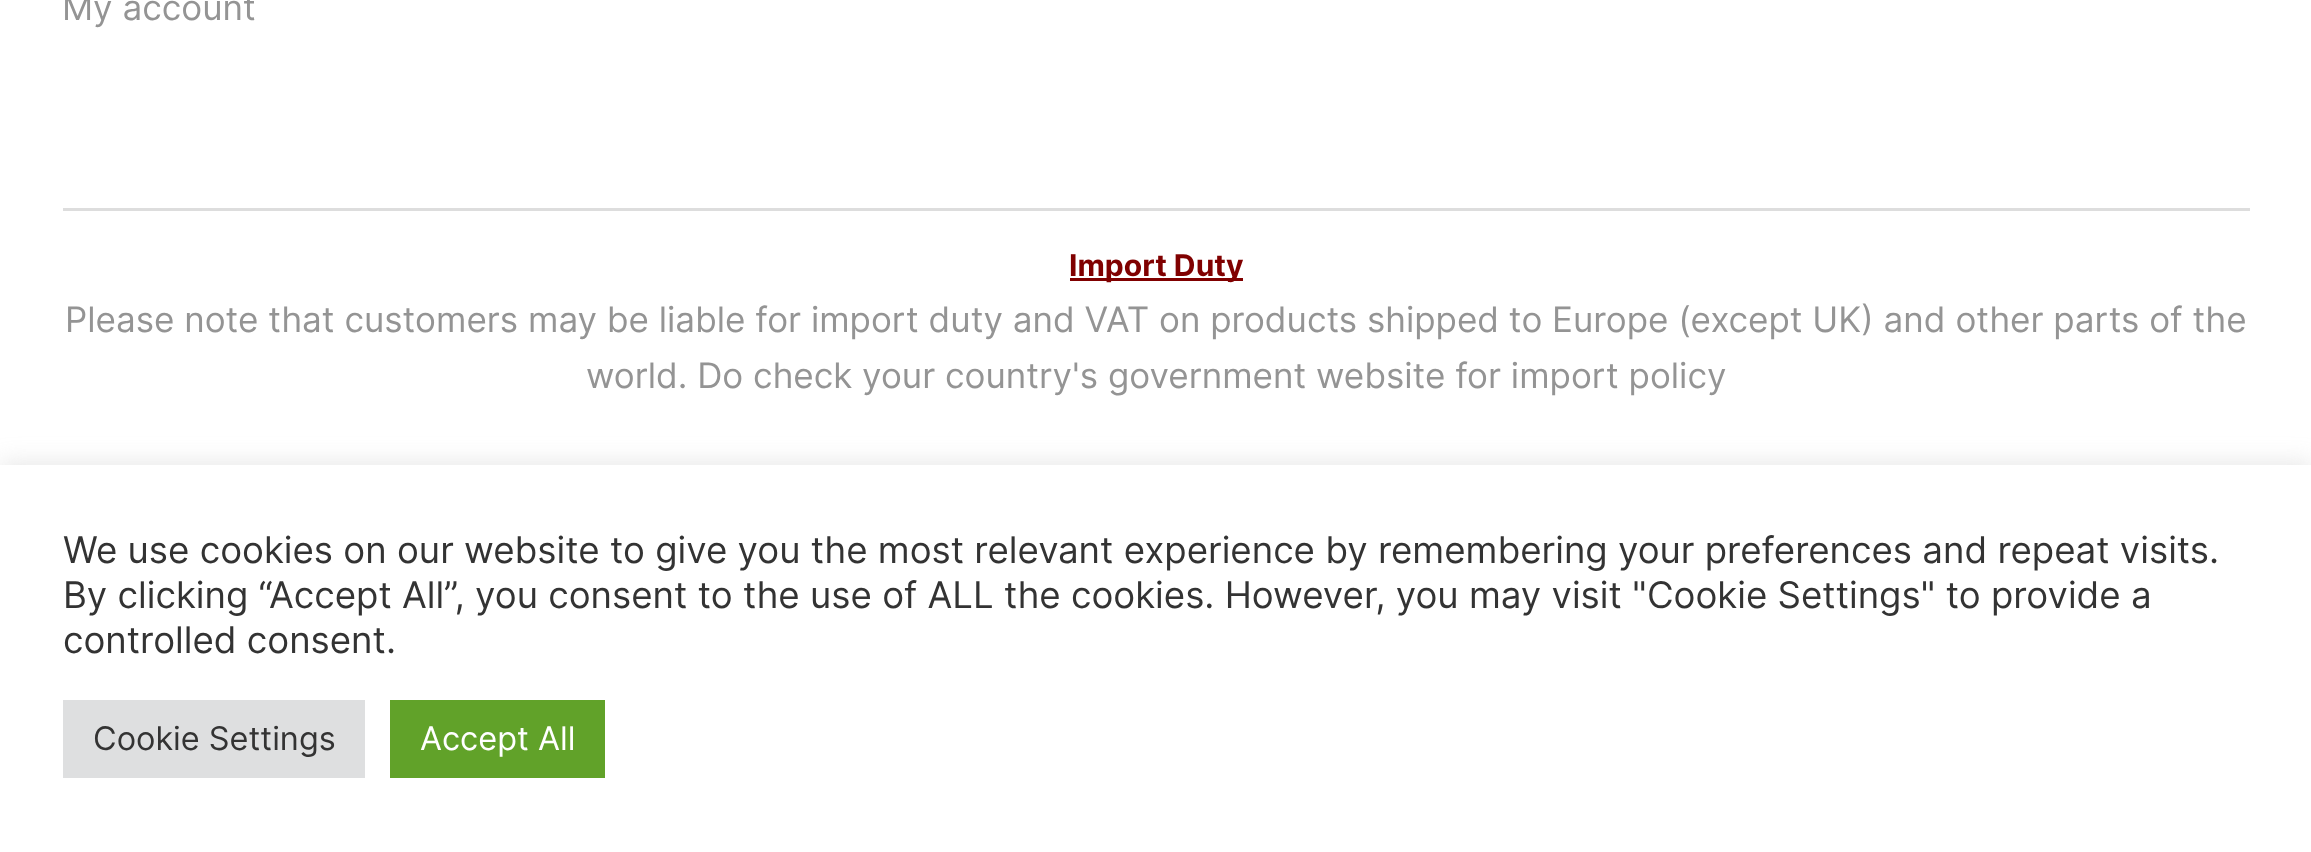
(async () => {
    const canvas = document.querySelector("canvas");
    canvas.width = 2311;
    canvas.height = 852;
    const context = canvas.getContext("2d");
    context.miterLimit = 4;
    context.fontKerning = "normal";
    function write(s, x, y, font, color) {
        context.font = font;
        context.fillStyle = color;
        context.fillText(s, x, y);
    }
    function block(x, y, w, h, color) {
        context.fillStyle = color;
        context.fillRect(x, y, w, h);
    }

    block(0, 0, 2311, 852, "rgb(255, 255, 255)");
    write("My account", 62, 20, "35px Inter", "rgb(148, 148, 148)");
    block(63, 208, 2187, 3, "rgb(221, 221, 221)");
    block(1070, 278, 173, 3, "rgb(128, 0, 0)");
    write("Import Duty", 1069, 276, "bold 30px Inter", "rgb(128, 0, 0)");
    write("Please note that customers may be liable for import duty and VAT on products shipped to Europe (except UK) and other parts of the", 65, 332, "35px Inter", "rgb(148, 148, 148)");
    write("world. Do check your country's government website for import policy", 586, 388, "35px Inter", "rgb(148, 148, 148)");
    context.fillStyle = "rgba(172, 171, 171, 0.3)";
    context.filter = "blur(12.5px)";
    context.beginPath();
    context.rect(0, 463, 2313, 387);
    context.fill();
    context.filter = "none";
    block(0, 465, 2311, 387, "rgb(255, 255, 255)");
    write("We use cookies on our website to give you the most relevant experience by remembering your preferences and repeat visits.", 63, 563, "36.67px Inter", "rgb(51, 51, 51)");
    write("By clicking “Accept All”, you consent to the use of ALL the cookies. However, you may visit \"Cookie Settings\" to provide a", 63, 608, "36.67px Inter", "rgb(51, 51, 51)");
    write("controlled consent.", 63, 653, "36.67px Inter", "rgb(51, 51, 51)");
    block(63, 700, 302, 78, "rgb(222, 223, 224)");
    write("Cookie Settings", 93, 750, "32.5px Inter", "rgb(51, 51, 51)");
    block(390, 700, 215, 78, "rgb(97, 162, 41)");
    write("Accept All", 420, 750, "32.5px Inter", "rgb(255, 255, 255)");
})();
